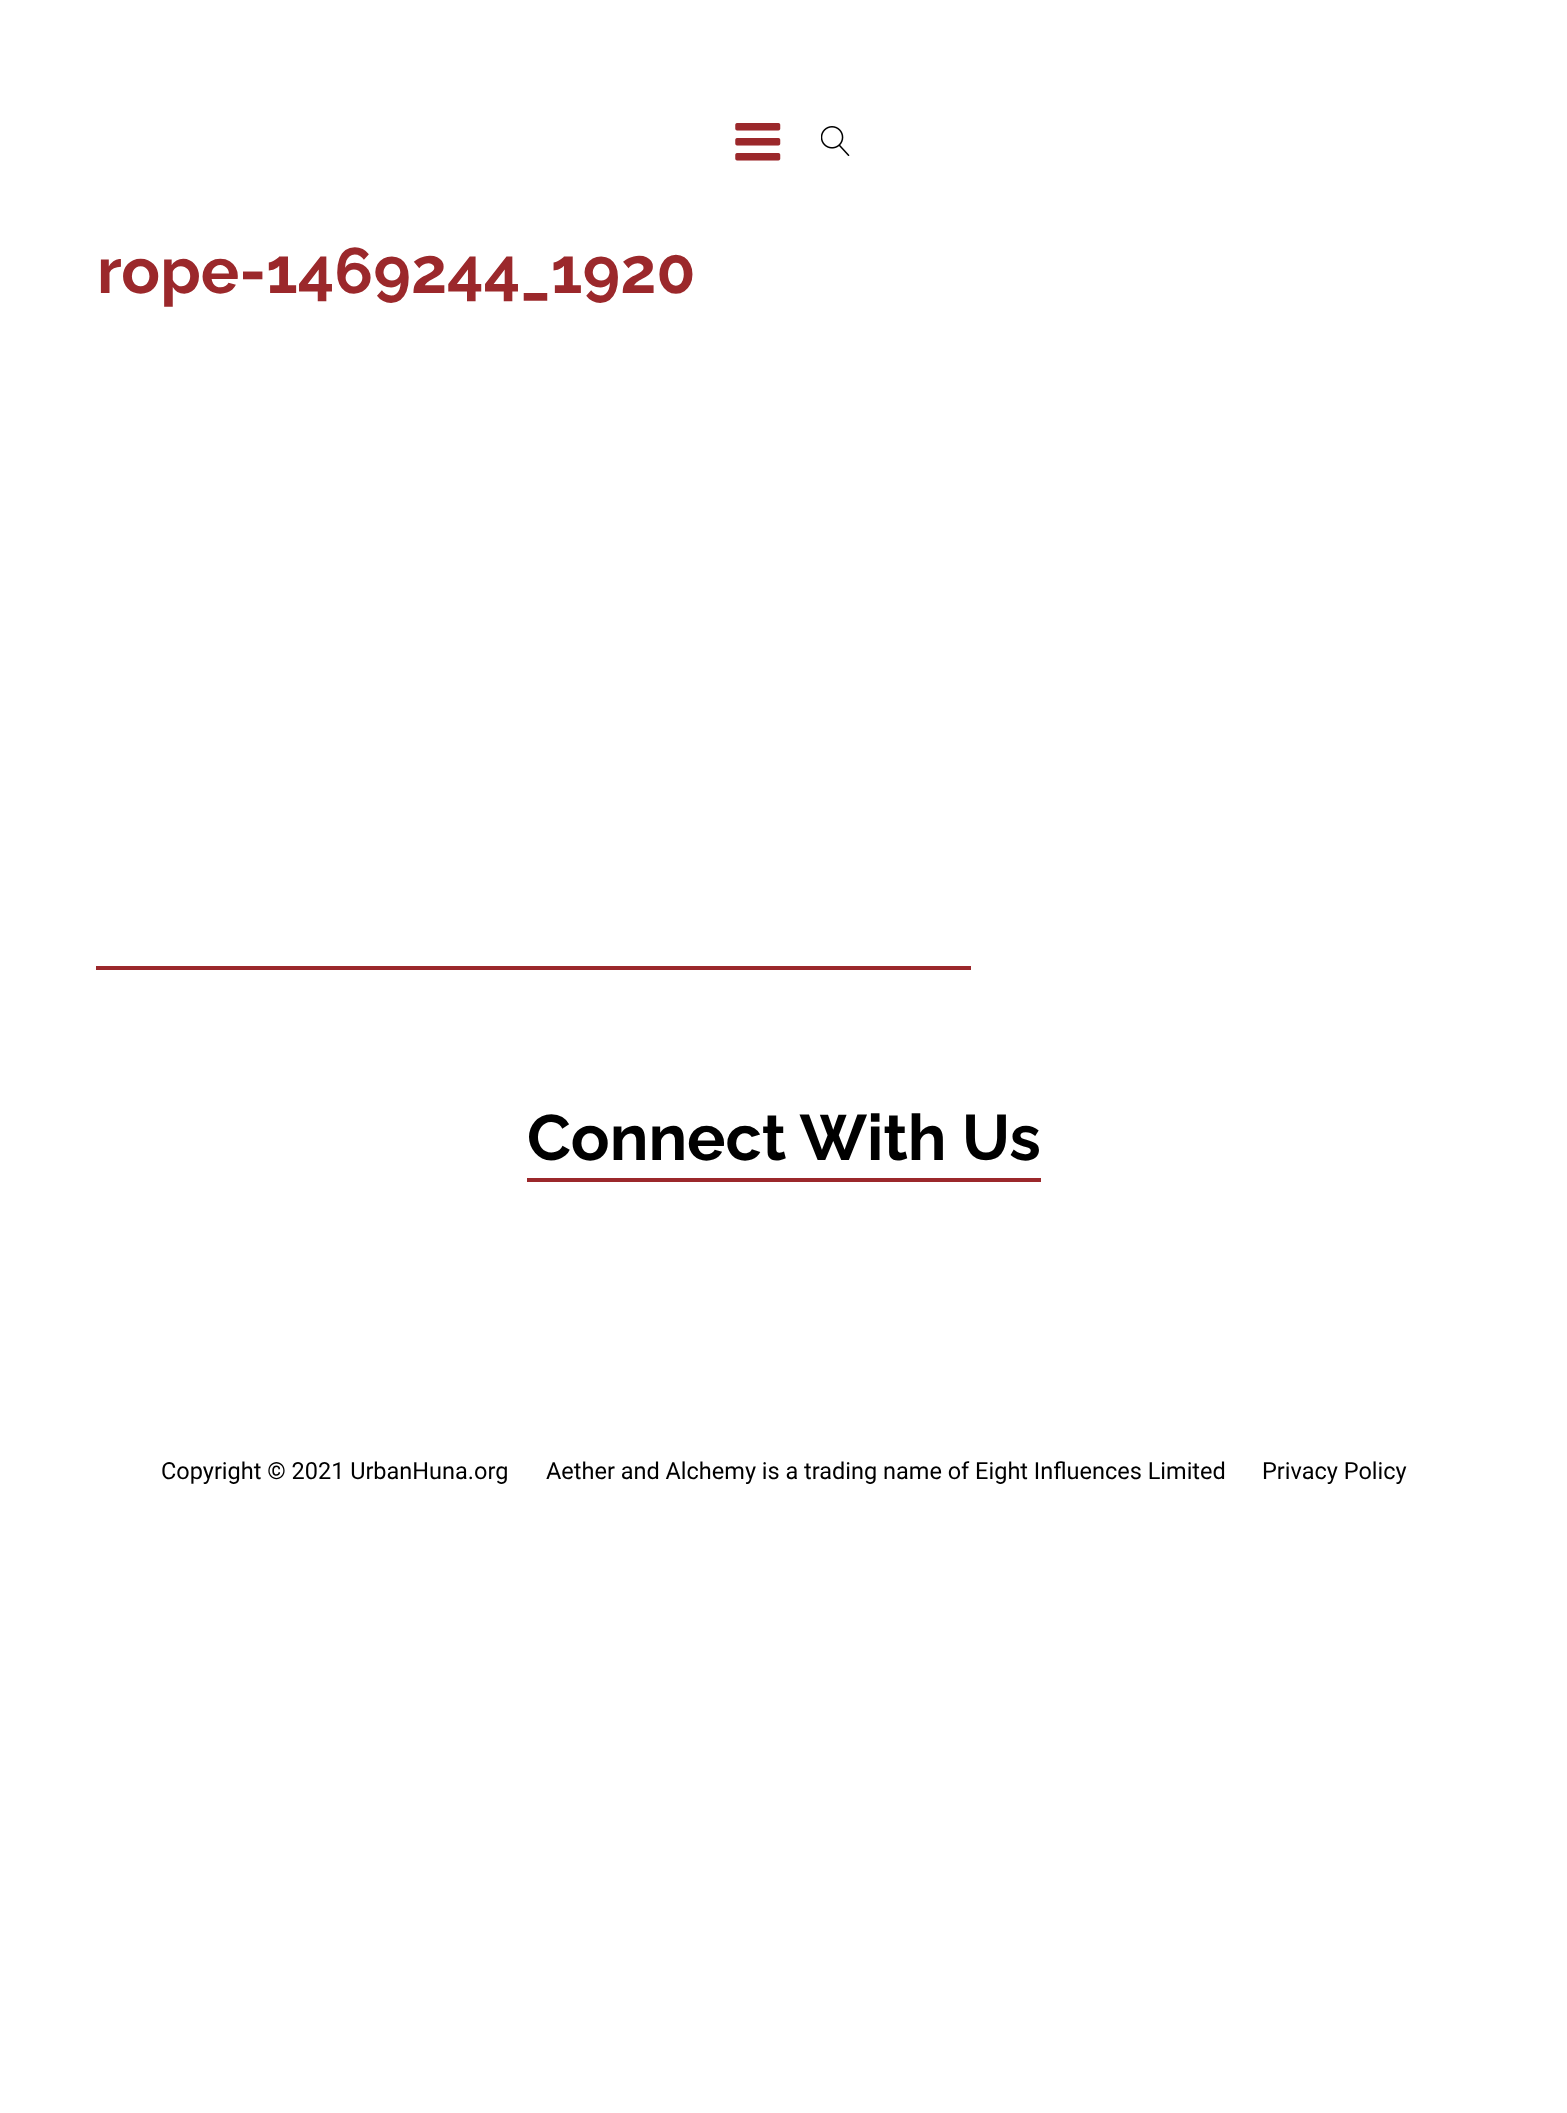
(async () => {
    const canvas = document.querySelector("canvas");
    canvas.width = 1567;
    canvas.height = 2113;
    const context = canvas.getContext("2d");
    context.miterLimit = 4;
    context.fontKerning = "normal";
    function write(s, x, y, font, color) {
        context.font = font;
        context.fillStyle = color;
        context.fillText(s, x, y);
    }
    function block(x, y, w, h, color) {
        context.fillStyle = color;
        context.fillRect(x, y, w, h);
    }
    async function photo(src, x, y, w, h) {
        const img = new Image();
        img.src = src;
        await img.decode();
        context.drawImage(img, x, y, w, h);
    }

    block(0, 0, 1567, 2113, "rgb(255, 255, 255)");
    await photo("media/1.png", 735, 123, 46, 38);
    await photo("media/2.png", 821, 126, 29, 30);
    write("rope-1469244_1920", 97, 293, "bold 64.1px Raleway", "rgb(155, 40, 43)");
    block(96, 966, 875, 4, "rgb(155, 40, 43)");
    block(527, 1178, 514, 4, "rgb(155, 40, 43)");
    write("Connect With Us", 527, 1160, "bold 64.1px Raleway", "rgb(0, 0, 0)");
    write("Copyright © 2021 UrbanHuna.org", 161, 1479, "23.5px Roboto", "rgb(0, 0, 0)");
    write("Aether and Alchemy is a trading name of Eight Influences Limited", 546, 1479, "23.5px Roboto", "rgb(0, 0, 0)");
    write("Privacy Policy", 1262, 1479, "23.5px Roboto", "rgb(0, 0, 0)");
})();
